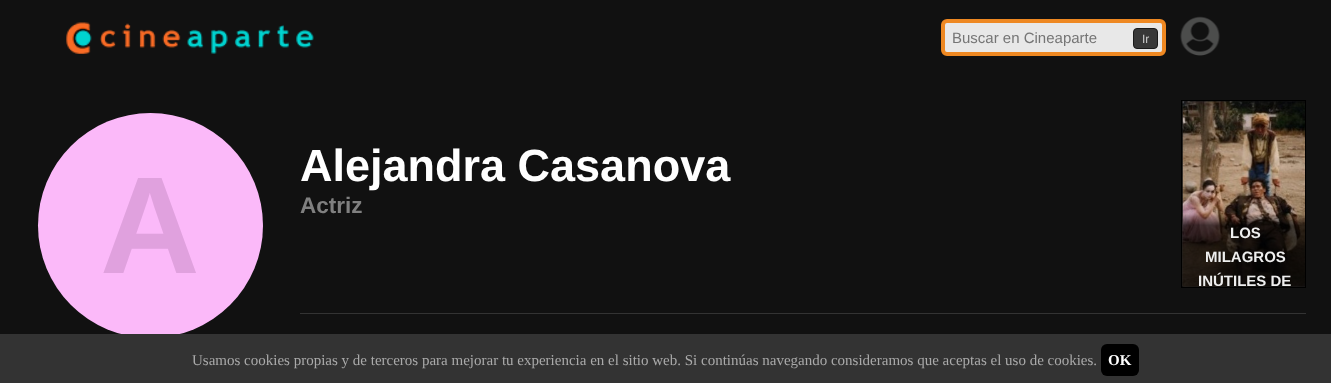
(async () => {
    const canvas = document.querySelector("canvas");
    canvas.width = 1331;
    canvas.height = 383;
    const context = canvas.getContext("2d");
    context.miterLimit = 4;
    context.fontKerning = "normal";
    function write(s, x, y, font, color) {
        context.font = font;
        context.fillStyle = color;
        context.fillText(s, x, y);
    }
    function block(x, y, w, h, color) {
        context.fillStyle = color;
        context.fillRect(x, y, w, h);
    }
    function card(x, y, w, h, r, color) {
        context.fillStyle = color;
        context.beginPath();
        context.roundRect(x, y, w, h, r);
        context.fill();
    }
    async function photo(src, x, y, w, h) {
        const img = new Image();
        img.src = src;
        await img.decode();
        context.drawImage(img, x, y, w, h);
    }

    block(0, 0, 1331, 383, "rgb(17, 17, 17)");
    await photo("media/1.png", 66, 22, 248, 32);
    context.fillStyle = "rgb(232, 232, 232)";
    context.beginPath();
    context.roundRect(943, 21, 221, 33, 4);
    context.fill();
    context.strokeStyle = "rgb(238, 136, 34)";
    context.lineWidth = 4;
    context.stroke();
    write("Buscar en Cineaparte", 952, 43, "15px Liberation Sans", "rgb(117, 117, 117)");
    context.fillStyle = "rgb(56, 56, 56)";
    context.beginPath();
    context.roundRect(1133.5, 28.5, 24, 20, 3.5);
    context.fill();
    context.strokeStyle = "rgb(26, 26, 26)";
    context.lineWidth = 1;
    context.stroke();
    write("Ir", 1142, 43, "12px Liberation Sans", "rgb(204, 204, 204)");
    await photo("media/2.png", 1180, 16, 40, 40);
    context.fillStyle = "rgb(251, 185, 249)";
    context.beginPath();
    context.arc(150.5, 225.5, 112.5, 0, Math.PI * 2);
    context.fill();
    write("A", 100, 273, "bold 138px Liberation Sans", "rgb(224, 161, 222)");
    write("Alejandra Casanova", 300, 181, "bold 45px Liberation Sans", "rgb(255, 255, 255)");
    write("Actriz", 300, 213, "bold 22.5px Liberation Sans", "rgb(128, 128, 128)");
    context.strokeStyle = "rgb(0, 0, 0)";
    context.strokeRect(1181.5, 100.5, 124, 187);
    await photo("media/3.png", 1182, 101, 123, 186);
    write("LOS", 1230, 238, "bold 15px Liberation Sans", "rgb(238, 238, 238)");
    write("MILAGROS", 1205, 262, "bold 15px Liberation Sans", "rgb(238, 238, 238)");
    context.save();
    context.beginPath();
    context.rect(1183, 101, 122, 185);
    context.clip();
    write("INÚTILES DE", 1198, 286, "bold 15px Liberation Sans", "rgb(238, 238, 238)");
    context.restore();
    block(300, 313, 1006, 1, "rgb(51, 51, 51)");
    block(0, 334, 1331, 49, "rgb(51, 51, 51)");
    write("Usamos cookies propias y de terceros para mejorar tu experiencia en el sitio web. Si continúas navegando consideramos que aceptas el uso de cookies.", 192, 365, "15px Liberation Serif", "rgb(170, 170, 170)");
    card(1101, 344, 38, 32, 6, "rgb(0, 0, 0)");
    write("OK", 1108, 365, "bold 15px Liberation Serif", "rgb(255, 255, 255)");
})();
